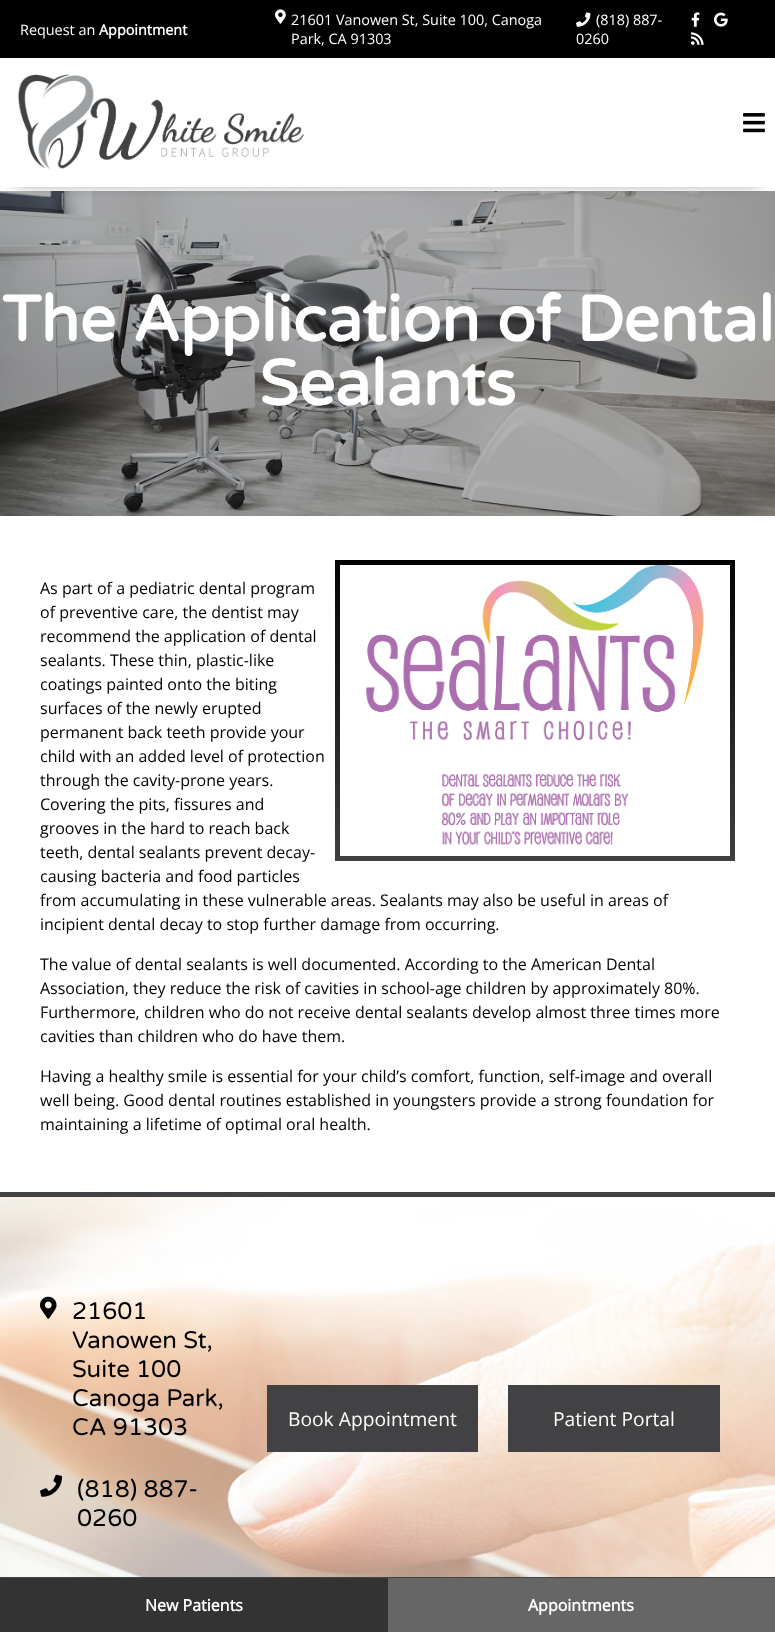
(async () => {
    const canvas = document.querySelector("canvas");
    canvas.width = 775;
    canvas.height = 1632;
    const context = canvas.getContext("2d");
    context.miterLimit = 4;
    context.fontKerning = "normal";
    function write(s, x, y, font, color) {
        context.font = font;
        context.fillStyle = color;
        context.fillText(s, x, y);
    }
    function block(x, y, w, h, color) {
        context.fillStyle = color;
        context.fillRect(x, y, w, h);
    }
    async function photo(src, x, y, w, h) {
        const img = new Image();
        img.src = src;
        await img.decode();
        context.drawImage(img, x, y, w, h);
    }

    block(0, 0, 775, 1632, "rgb(255, 255, 255)");
    block(0, 0, 775, 58, "rgb(0, 0, 0)");
    write("Request an", 20, 35, "14.4px Open Sans", "rgb(255, 255, 255)");
    write("Appointment", 99, 35, "bold 14.4px Open Sans", "rgb(255, 255, 255)");
    await photo("media/1.png", 275, 9, 11, 15);
    write("21601 Vanowen St, Suite 100, Canoga", 291, 25, "14.4px Open Sans", "rgb(255, 255, 255)");
    write("Park, CA 91303", 291, 44, "14.4px Open Sans", "rgb(255, 255, 255)");
    await photo("media/2.png", 576, 12, 15, 15);
    write("(818) 887-", 596, 25, "14.4px Open Sans", "rgb(255, 255, 255)");
    write("0260", 576, 44, "14.4px Open Sans", "rgb(255, 255, 255)");
    await photo("media/3.png", 691, 12, 9, 15);
    await photo("media/4.png", 714, 12, 14, 15);
    await photo("media/5.png", 691, 32, 13, 13);
    await photo("media/8.png", 0, 191, 775, 325);
    context.save();
    context.beginPath();
    context.rect(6, 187, 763, 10);
    context.clip();
    context.fillStyle = "rgb(68, 68, 68)";
    context.filter = "blur(8px)";
    context.beginPath();
    context.rect(16, 84, 743, 97);
    context.fill();
    context.filter = "none";
    context.restore();
    await photo("media/6.png", 17, 74, 287, 95);
    await photo("media/7.png", 743, 113, 22, 20);
    write("The Application of Dental", 2, 341, "bold 64px Varela Round", "rgb(255, 255, 255)");
    write("Sealants", 259, 405, "bold 64px Varela Round", "rgb(255, 255, 255)");
    await photo("media/9.png", 335, 560, 400, 301);
    await photo("media/10.png", 366, 565, 338, 280);
    write("As part of a pediatric dental program", 40, 594, "16px Open Sans", "rgb(0, 0, 0)");
    write("of preventive care, the dentist may", 40, 618, "16px Open Sans", "rgb(0, 0, 0)");
    write("recommend the application of dental", 40, 642, "16px Open Sans", "rgb(0, 0, 0)");
    write("sealants. These thin, plastic-like", 40, 666, "16px Open Sans", "rgb(0, 0, 0)");
    write("coatings painted onto the biting", 40, 690, "16px Open Sans", "rgb(0, 0, 0)");
    write("surfaces of the newly erupted", 40, 714, "16px Open Sans", "rgb(0, 0, 0)");
    write("permanent back teeth provide your", 40, 738, "16px Open Sans", "rgb(0, 0, 0)");
    write("child with an added level of protection", 40, 762, "16px Open Sans", "rgb(0, 0, 0)");
    write("through the cavity-prone years.", 40, 786, "16px Open Sans", "rgb(0, 0, 0)");
    write("Covering the pits, fissures and", 40, 810, "16px Open Sans", "rgb(0, 0, 0)");
    write("grooves in the hard to reach back", 40, 834, "16px Open Sans", "rgb(0, 0, 0)");
    write("teeth, dental sealants prevent decay-", 40, 858, "16px Open Sans", "rgb(0, 0, 0)");
    write("causing bacteria and food particles", 40, 882, "16px Open Sans", "rgb(0, 0, 0)");
    write("from accumulating in these vulnerable areas. Sealants may also be useful in areas of", 40, 906, "16px Open Sans", "rgb(0, 0, 0)");
    write("incipient dental decay to stop further damage from occurring.", 40, 930, "16px Open Sans", "rgb(0, 0, 0)");
    write("The value of dental sealants is well documented. According to the American Dental", 40, 970, "16px Open Sans", "rgb(0, 0, 0)");
    write("Association, they reduce the risk of cavities in school-age children by approximately 80%.", 40, 994, "16px Open Sans", "rgb(0, 0, 0)");
    write("Furthermore, children who do not receive dental sealants develop almost three times more", 40, 1018, "16px Open Sans", "rgb(0, 0, 0)");
    write("cavities than children who do have them.", 40, 1042, "16px Open Sans", "rgb(0, 0, 0)");
    write("Having a healthy smile is essential for your child’s comfort, function, self-image and overall", 40, 1082, "16px Open Sans", "rgb(0, 0, 0)");
    write("well being. Good dental routines established in youngsters provide a strong foundation for", 40, 1106, "16px Open Sans", "rgb(0, 0, 0)");
    write("maintaining a lifetime of optimal oral health.", 40, 1130, "16px Open Sans", "rgb(0, 0, 0)");
    await photo("media/11.png", 0, 1197, 775, 380);
    block(0, 1192, 775, 5, "rgb(66, 66, 68)");
    await photo("media/12.png", 40, 1296, 17, 23);
    write("21601", 72, 1319, "24px Varela Round", "rgb(0, 0, 0)");
    write("Vanowen St,", 72, 1348, "24px Varela Round", "rgb(0, 0, 0)");
    write("Suite 100", 72, 1377, "24px Varela Round", "rgb(0, 0, 0)");
    write("Canoga Park,", 72, 1406, "24px Varela Round", "rgb(0, 0, 0)");
    write("CA 91303", 72, 1435, "24px Varela Round", "rgb(0, 0, 0)");
    await photo("media/13.png", 40, 1474, 22, 23);
    write("(818) 887-", 77, 1497, "24px Varela Round", "rgb(0, 0, 0)");
    write("0260", 77, 1526, "24px Varela Round", "rgb(0, 0, 0)");
    block(267, 1385, 211, 67, "rgb(66, 66, 68)");
    write("Book Appointment", 288, 1426, "19.25px Open Sans", "rgb(255, 255, 255)");
    block(508, 1385, 212, 67, "rgb(66, 66, 68)");
    write("Patient Portal", 553, 1426, "19.25px Open Sans", "rgb(255, 255, 255)");
    block(0, 1578, 388, 54, "rgb(51, 51, 51)");
    block(0, 1577, 775, 1, "rgb(68, 68, 68)");
    write("New Patients", 145, 1611, "bold 16px Open Sans", "rgb(255, 255, 255)");
    block(388, 1578, 387, 54, "rgb(102, 102, 102)");
    write("Appointments", 528, 1611, "bold 16px Open Sans", "rgb(255, 255, 255)");
})();
